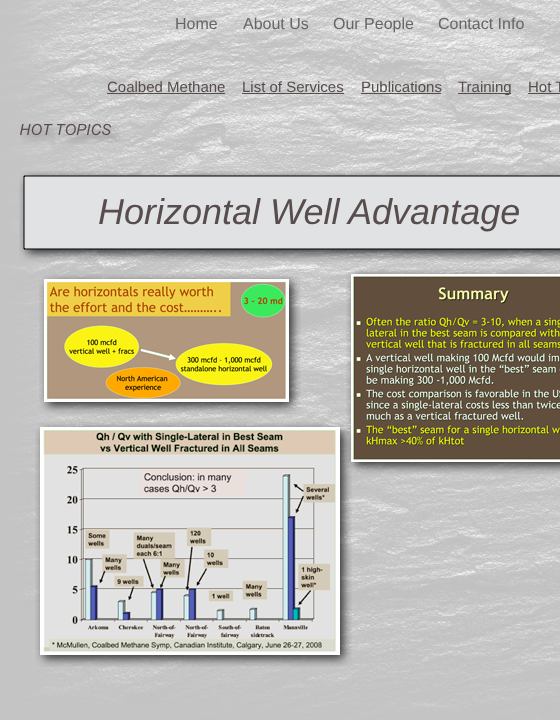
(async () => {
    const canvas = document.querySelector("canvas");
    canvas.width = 560;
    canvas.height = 720;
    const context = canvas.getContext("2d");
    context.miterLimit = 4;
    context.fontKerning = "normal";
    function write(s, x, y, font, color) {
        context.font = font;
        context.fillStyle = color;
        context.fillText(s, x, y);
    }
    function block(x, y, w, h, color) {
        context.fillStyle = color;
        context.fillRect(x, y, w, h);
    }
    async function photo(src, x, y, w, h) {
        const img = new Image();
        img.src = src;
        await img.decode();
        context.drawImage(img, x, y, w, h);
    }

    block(0, 0, 560, 720, "rgb(255, 255, 255)");
    await photo("media/1.png", 0, 0, 560, 720);
    write("Home", 175, 29, "16px Liberation Sans", "rgb(102, 102, 102)");
    write("About Us", 243, 29, "16px Liberation Sans", "rgb(102, 102, 102)");
    write("Our People", 333, 29, "16px Liberation Sans", "rgb(102, 102, 102)");
    write("Contact Info", 438, 29, "16px Liberation Sans", "rgb(102, 102, 102)");
    write("Coalbed Methane", 107, 92, "15px Liberation Sans", "rgb(88, 77, 77)");
    block(107, 93, 118, 1, "rgb(88, 77, 77)");
    write("List of Services", 242, 92, "15px Liberation Sans", "rgb(88, 77, 77)");
    block(242, 93, 102, 1, "rgb(88, 77, 77)");
    write("Publications", 361, 92, "15px Liberation Sans", "rgb(88, 77, 77)");
    block(361, 93, 80, 1, "rgb(88, 77, 77)");
    block(458, 93, 53, 1, "rgb(88, 77, 77)");
    write("Training", 458, 92, "15px Liberation Sans", "rgb(88, 77, 77)");
    write("Hot T", 528, 92, "15px Liberation Sans", "rgb(88, 77, 77)");
    block(528, 93, 32, 1, "rgb(88, 77, 77)");
    await photo("media/2.png", 20, 123, 100, 22);
    block(24, 176, 536, 73, "rgb(225, 226, 228)");
    await photo("media/3.png", 19, 171, 541, 91);
    write("Horizontal Well Advantage", 98, 224, "italic 36px Liberation Sans", "rgb(88, 77, 77)");
    await photo("media/4.png", 39, 274, 262, 140);
    await photo("media/5.png", 346, 269, 214, 205);
    await photo("media/6.png", 35, 422, 317, 245);
})();
